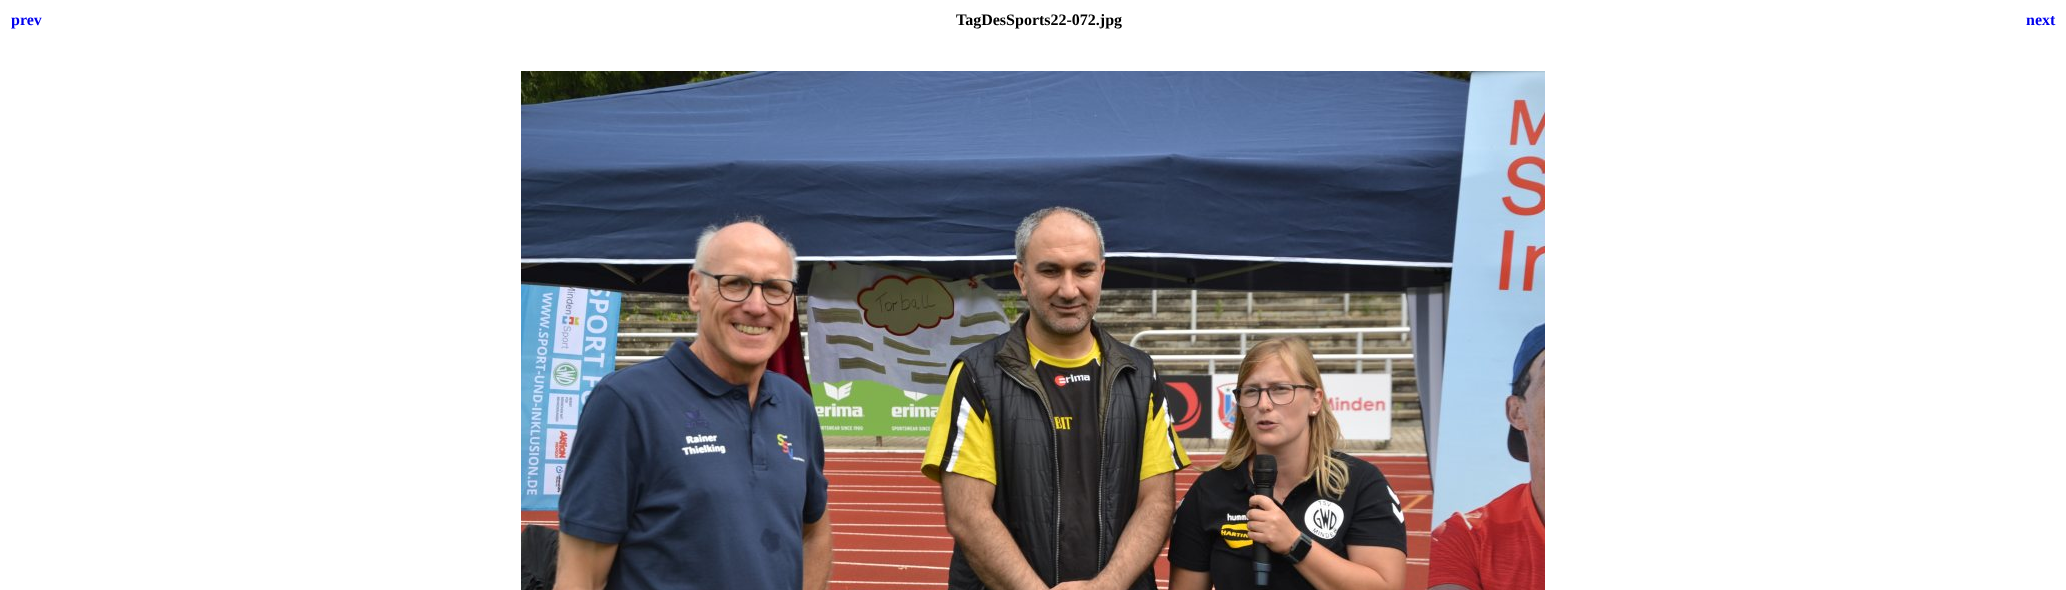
(async () => {
    const canvas = document.querySelector("canvas");
    canvas.width = 2066;
    canvas.height = 590;
    const context = canvas.getContext("2d");
    context.miterLimit = 4;
    context.fontKerning = "normal";
    function write(s, x, y, font, color) {
        context.font = font;
        context.fillStyle = color;
        context.fillText(s, x, y);
    }
    function block(x, y, w, h, color) {
        context.fillStyle = color;
        context.fillRect(x, y, w, h);
    }
    async function photo(src, x, y, w, h) {
        const img = new Image();
        img.src = src;
        await img.decode();
        context.drawImage(img, x, y, w, h);
    }

    block(0, 0, 2066, 590, "rgb(255, 255, 255)");
    write("prev", 11, 25, "bold 16px Liberation Serif", "rgb(0, 0, 238)");
    write("TagDesSports22-072.jpg", 956, 25, "bold 16px Liberation Serif", "rgb(0, 0, 0)");
    write("next", 2026, 25, "bold 16px Liberation Serif", "rgb(0, 0, 238)");
    await photo("media/1.png", 521, 71, 1024, 519);
})();
